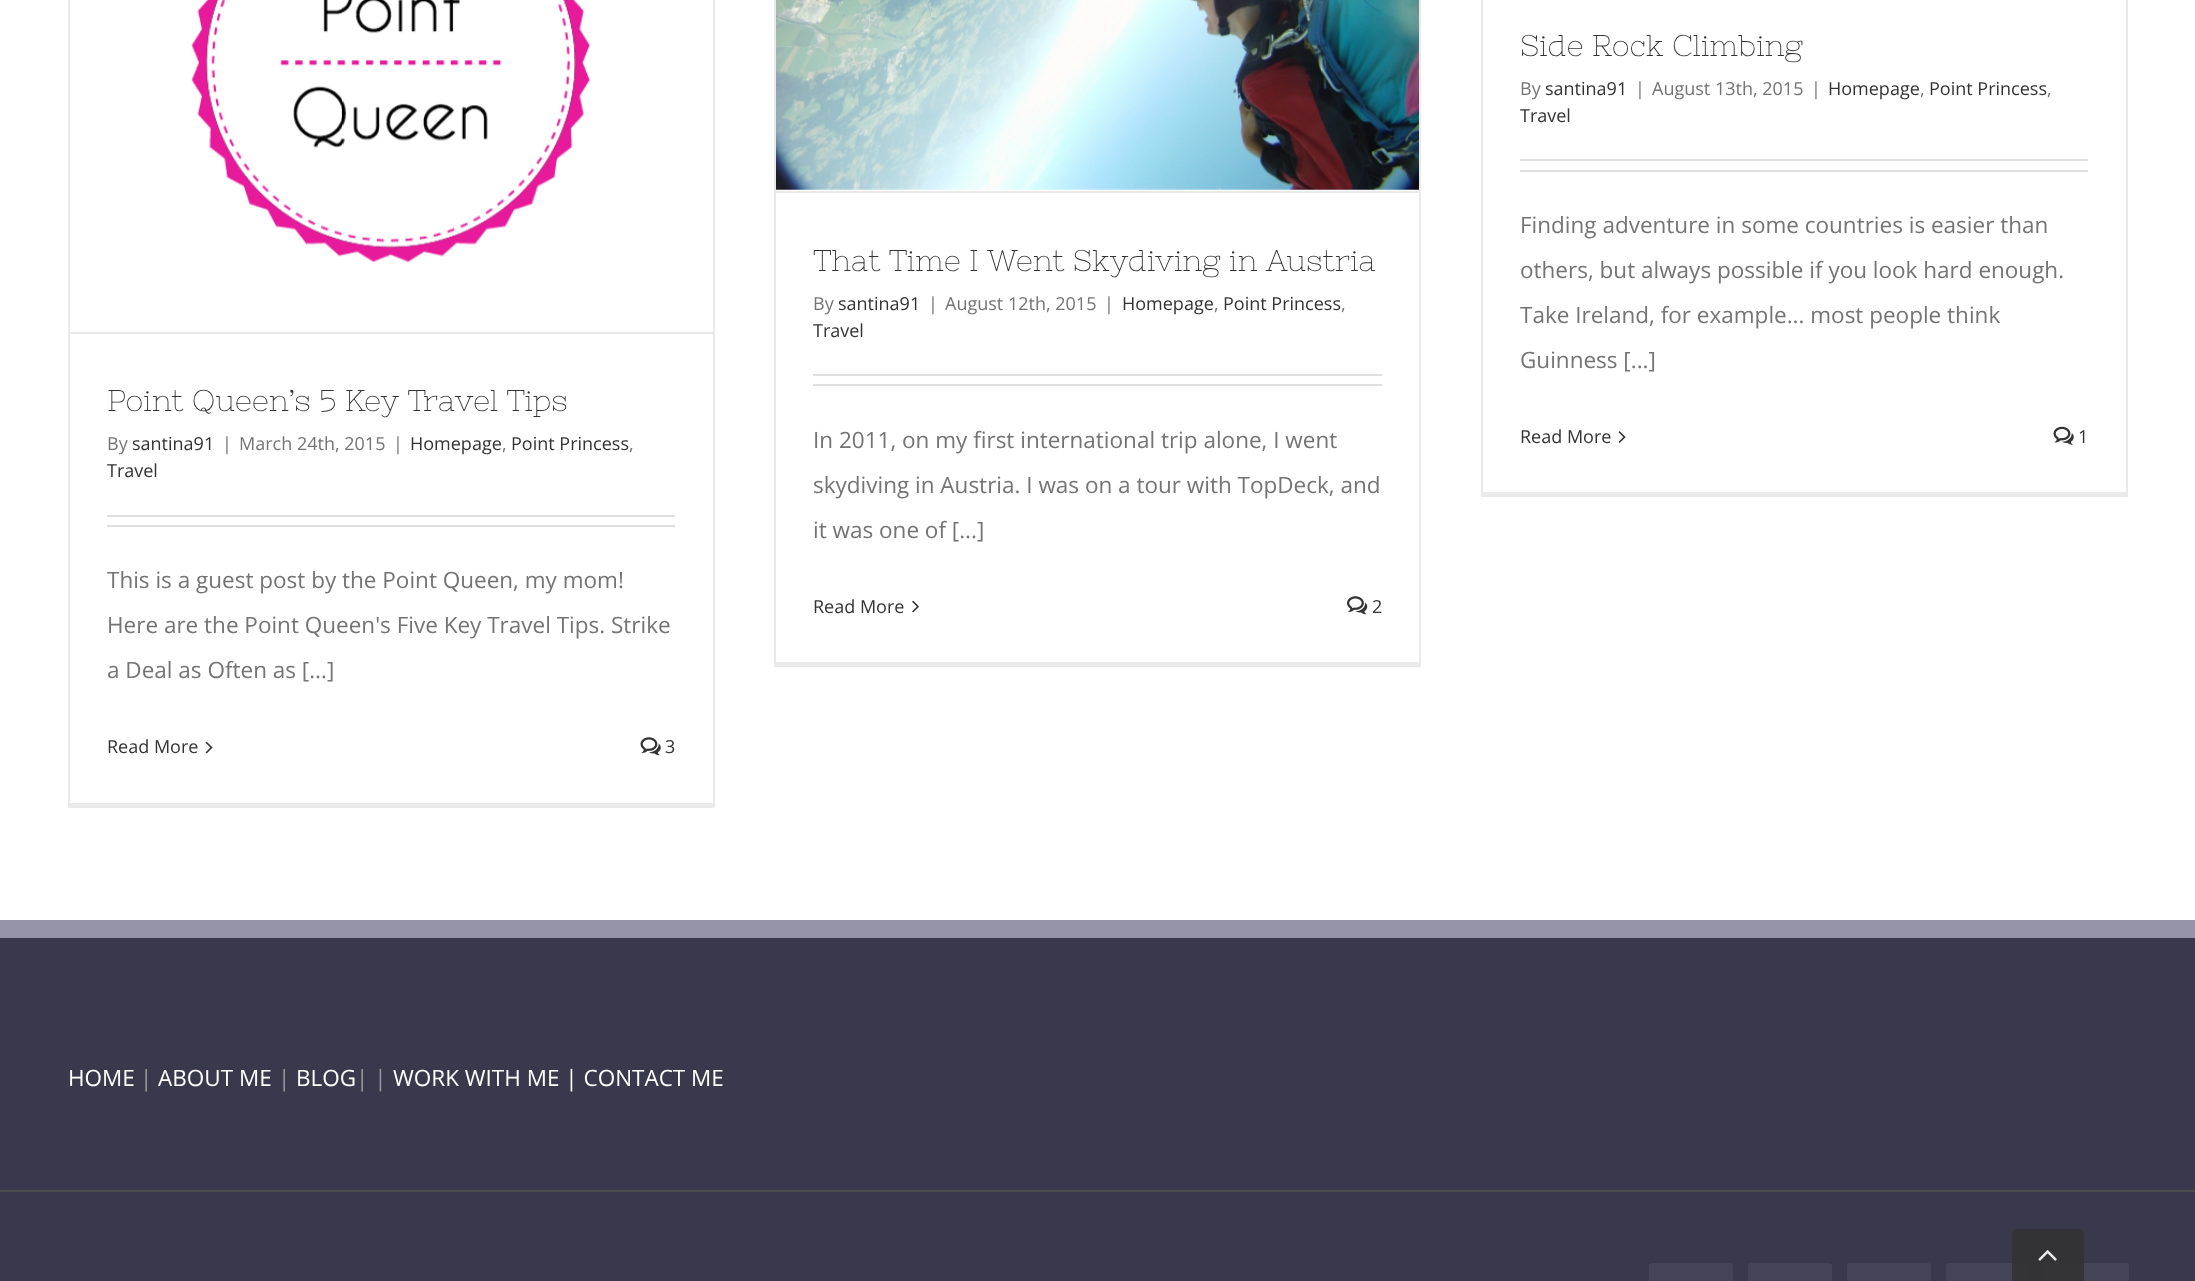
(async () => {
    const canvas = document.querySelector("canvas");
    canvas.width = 2195;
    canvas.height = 1281;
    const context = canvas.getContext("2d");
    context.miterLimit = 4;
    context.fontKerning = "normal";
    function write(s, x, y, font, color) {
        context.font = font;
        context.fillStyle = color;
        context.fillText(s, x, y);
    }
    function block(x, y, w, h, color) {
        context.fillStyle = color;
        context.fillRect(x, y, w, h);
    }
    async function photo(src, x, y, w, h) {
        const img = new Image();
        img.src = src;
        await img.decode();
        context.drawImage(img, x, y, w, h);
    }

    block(0, 0, 2195, 1281, "rgb(255, 255, 255)");
    block(713, 0, 2, 807, "rgb(235, 234, 234)");
    block(68, 803, 646, 5, "rgb(235, 234, 234)");
    block(68, 0, 2, 807, "rgb(235, 234, 234)");
    block(69, 332, 644, 2, "rgb(235, 234, 234)");
    await photo("media/1.png", 191, 0, 400, 263);
    write("Point Queen’s 5 Key Travel Tips", 107, 411, "30px Nixie One", "rgb(51, 51, 51)");
    write("By", 107, 450, "18px Open Sans", "rgb(116, 116, 116)");
    write("santina91", 132, 450, "18px Open Sans", "rgb(51, 51, 51)");
    write("|", 222, 450, "18px Open Sans", "rgb(116, 116, 116)");
    write("March 24th, 2015", 239, 450, "18px Open Sans", "rgb(116, 116, 116)");
    write("|", 393, 450, "18px Open Sans", "rgb(116, 116, 116)");
    write("Homepage", 410, 450, "18px Open Sans", "rgb(51, 51, 51)");
    write(",", 502, 450, "18px Open Sans", "rgb(116, 116, 116)");
    write("Point Princess", 511, 450, "18px Open Sans", "rgb(51, 51, 51)");
    write(",", 629, 450, "18px Open Sans", "rgb(116, 116, 116)");
    write("Travel", 107, 477, "18px Open Sans", "rgb(51, 51, 51)");
    block(107, 515, 568, 2, "rgb(224, 222, 222)");
    block(107, 525, 568, 2, "rgb(224, 222, 222)");
    write("This is a guest post by the Point Queen, my mom!", 107, 588, "22.5px Open Sans", "rgb(116, 116, 116)");
    write("Here are the Point Queen's Five Key Travel Tips. Strike", 107, 633, "22.5px Open Sans", "rgb(116, 116, 116)");
    write("a Deal as Often as [...]", 107, 678, "22.5px Open Sans", "rgb(116, 116, 116)");
    write("Read More", 107, 753, "18px Open Sans", "rgb(51, 51, 51)");
    await photo("media/2.png", 205, 741, 8, 13);
    await photo("media/3.png", 640, 737, 21, 19);
    write("3", 665, 753, "18px Open Sans", "rgb(51, 51, 51)");
    block(1419, 0, 2, 666, "rgb(235, 234, 234)");
    block(774, 662, 647, 5, "rgb(235, 234, 234)");
    block(774, 0, 2, 666, "rgb(235, 234, 234)");
    block(776, 191, 643, 2, "rgb(235, 234, 234)");
    await photo("media/4.png", 776, 0, 643, 190);
    write("That Time I Went Skydiving in Austria", 813, 271, "30px Nixie One", "rgb(51, 51, 51)");
    write("By", 813, 310, "18px Open Sans", "rgb(116, 116, 116)");
    write("santina91", 838, 310, "18px Open Sans", "rgb(51, 51, 51)");
    write("|", 928, 310, "18px Open Sans", "rgb(116, 116, 116)");
    write("August 12th, 2015", 945, 310, "18px Open Sans", "rgb(116, 116, 116)");
    write("|", 1104, 310, "18px Open Sans", "rgb(116, 116, 116)");
    write("Homepage", 1122, 310, "18px Open Sans", "rgb(51, 51, 51)");
    write(",", 1214, 310, "18px Open Sans", "rgb(116, 116, 116)");
    write("Point Princess", 1223, 310, "18px Open Sans", "rgb(51, 51, 51)");
    write(",", 1341, 310, "18px Open Sans", "rgb(116, 116, 116)");
    write("Travel", 813, 337, "18px Open Sans", "rgb(51, 51, 51)");
    block(813, 374, 569, 2, "rgb(224, 222, 222)");
    block(813, 384, 569, 2, "rgb(224, 222, 222)");
    write("In 2011, on my first international trip alone, I went", 813, 448, "22.5px Open Sans", "rgb(116, 116, 116)");
    write("skydiving in Austria. I was on a tour with TopDeck, and", 813, 493, "22.5px Open Sans", "rgb(116, 116, 116)");
    write("it was one of [...]", 813, 538, "22.5px Open Sans", "rgb(116, 116, 116)");
    write("Read More", 813, 613, "18px Open Sans", "rgb(51, 51, 51)");
    await photo("media/5.png", 912, 600, 7, 13);
    await photo("media/6.png", 1347, 596, 21, 19);
    write("2", 1372, 613, "18px Open Sans", "rgb(51, 51, 51)");
    block(2126, 0, 2, 497, "rgb(235, 234, 234)");
    block(1481, 492, 646, 5, "rgb(235, 234, 234)");
    block(1481, 0, 2, 497, "rgb(235, 234, 234)");
    write("Side Rock Climbing", 1520, 56, "30px Nixie One", "rgb(51, 51, 51)");
    write("By", 1520, 95, "18px Open Sans", "rgb(116, 116, 116)");
    write("santina91", 1545, 95, "18px Open Sans", "rgb(51, 51, 51)");
    write("|", 1635, 95, "18px Open Sans", "rgb(116, 116, 116)");
    write("August 13th, 2015", 1652, 95, "18px Open Sans", "rgb(116, 116, 116)");
    write("|", 1811, 95, "18px Open Sans", "rgb(116, 116, 116)");
    write("Homepage", 1828, 95, "18px Open Sans", "rgb(51, 51, 51)");
    write(",", 1920, 95, "18px Open Sans", "rgb(116, 116, 116)");
    write("Point Princess", 1929, 95, "18px Open Sans", "rgb(51, 51, 51)");
    write(",", 2047, 95, "18px Open Sans", "rgb(116, 116, 116)");
    write("Travel", 1520, 122, "18px Open Sans", "rgb(51, 51, 51)");
    block(1520, 159, 568, 2, "rgb(224, 222, 222)");
    block(1520, 170, 568, 2, "rgb(224, 222, 222)");
    write("Finding adventure in some countries is easier than", 1520, 233, "22.5px Open Sans", "rgb(116, 116, 116)");
    write("others, but always possible if you look hard enough.", 1520, 278, "22.5px Open Sans", "rgb(116, 116, 116)");
    write("Take Ireland, for example... most people think", 1520, 323, "22.5px Open Sans", "rgb(116, 116, 116)");
    write("Guinness [...]", 1520, 368, "22.5px Open Sans", "rgb(116, 116, 116)");
    write("Read More", 1520, 443, "18px Open Sans", "rgb(51, 51, 51)");
    await photo("media/7.png", 1618, 431, 8, 12);
    await photo("media/8.png", 2053, 426, 21, 19);
    write("1", 2078, 443, "18px Open Sans", "rgb(51, 51, 51)");
    block(0, 938, 2195, 252, "rgb(57, 57, 78)");
    block(0, 920, 2195, 18, "rgb(149, 149, 170)");
    write("HOME", 68, 1086, "22.5px Open Sans", "rgb(255, 255, 255)");
    write("|", 140, 1086, "22.5px Open Sans", "rgb(153, 153, 153)");
    write("ABOUT ME", 158, 1086, "22.5px Open Sans", "rgb(255, 255, 255)");
    write("|", 278, 1086, "22.5px Open Sans", "rgb(153, 153, 153)");
    write("BLOG", 296, 1086, "22.5px Open Sans", "rgb(255, 255, 255)");
    write("| |", 356, 1086, "22.5px Open Sans", "rgb(153, 153, 153)");
    write("WORK WITH ME | CONTACT ME", 393, 1086, "22.5px Open Sans", "rgb(255, 255, 255)");
    block(0, 1192, 2195, 89, "rgb(57, 57, 78)");
    block(0, 1190, 2195, 2, "rgb(75, 76, 77)");
    context.fillStyle = "rgb(67, 68, 88)";
    context.beginPath();
    context.roundRect(1650, 1264, 82, 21, 2);
    context.fill();
    context.strokeStyle = "rgb(67, 68, 88)";
    context.lineWidth = 2;
    context.stroke();
    context.beginPath();
    context.roundRect(1749, 1264, 82, 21, 2);
    context.fill();
    context.stroke();
    context.beginPath();
    context.roundRect(1848, 1264, 82, 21, 2);
    context.fill();
    context.stroke();
    context.beginPath();
    context.roundRect(1947, 1264, 82, 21, 2);
    context.fill();
    context.stroke();
    context.beginPath();
    context.roundRect(2046, 1264, 82, 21, 2);
    context.fill();
    context.stroke();
    context.fillStyle = "rgba(51, 51, 51, 0.9)";
    context.beginPath();
    context.roundRect(2012, 1229, 72, 52, [6, 6, 0, 0]);
    context.fill();
    await photo("media/9.png", 2038, 1250, 19, 11);
})();
